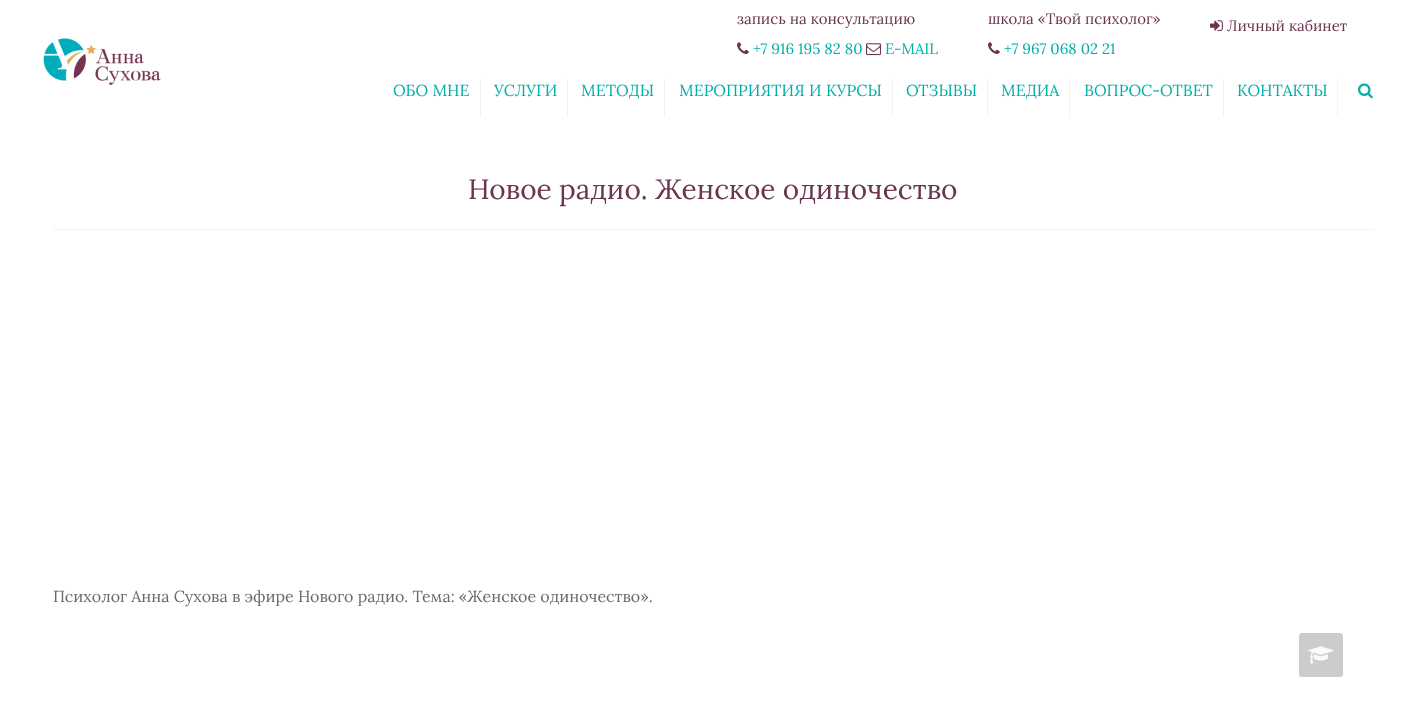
(async () => {
    const canvas = document.querySelector("canvas");
    canvas.width = 1425;
    canvas.height = 705;
    const context = canvas.getContext("2d");
    context.miterLimit = 4;
    context.fontKerning = "normal";
    function write(s, x, y, font, color) {
        context.font = font;
        context.fillStyle = color;
        context.fillText(s, x, y);
    }
    function block(x, y, w, h, color) {
        context.fillStyle = color;
        context.fillRect(x, y, w, h);
    }
    function card(x, y, w, h, r, color) {
        context.fillStyle = color;
        context.beginPath();
        context.roundRect(x, y, w, h, r);
        context.fill();
    }
    async function photo(src, x, y, w, h) {
        const img = new Image();
        img.src = src;
        await img.decode();
        context.drawImage(img, x, y, w, h);
    }

    block(0, 0, 1425, 705, "rgb(255, 255, 255)");
    write("запись на консультацию", 737, 24, "15px Lora", "rgb(106, 53, 81)");
    await photo("media/1.png", 737, 42, 12, 12);
    write("+7 916 195 82 80", 753, 54, "15px Lora", "rgb(0, 175, 170)");
    await photo("media/2.png", 866, 43, 15, 13);
    write("E-MAIL", 885, 54, "15px Lora", "rgb(0, 175, 170)");
    write("школа «Твой психолог»", 988, 24, "15px Lora", "rgb(106, 53, 81)");
    await photo("media/1.png", 988, 42, 12, 12);
    write("+7 967 068 02 21", 1004, 54, "15px Lora", "rgb(0, 175, 170)");
    await photo("media/3.png", 1210, 20, 13, 11);
    write("Личный кабинет", 1227, 31, "15px Lora", "rgb(106, 53, 81)");
    await photo("media/4.png", 43, 38, 118, 48);
    write("ОБО МНЕ", 393, 96, "16px Lora", "rgb(0, 175, 170)");
    block(480, 79, 1, 38, "rgb(242, 242, 242)");
    write("УСЛУГИ", 494, 96, "16px Lora", "rgb(0, 175, 170)");
    block(567, 79, 1, 38, "rgb(242, 242, 242)");
    write("МЕТОДЫ", 581, 96, "16px Lora", "rgb(0, 175, 170)");
    block(664, 79, 1, 38, "rgb(242, 242, 242)");
    write("МЕРОПРИЯТИЯ И КУРСЫ", 679, 96, "16px Lora", "rgb(0, 175, 170)");
    block(892, 79, 1, 38, "rgb(242, 242, 242)");
    write("ОТЗЫВЫ", 906, 96, "16px Lora", "rgb(0, 175, 170)");
    block(987, 79, 1, 38, "rgb(242, 242, 242)");
    write("МЕДИА", 1001, 96, "16px Lora", "rgb(0, 175, 170)");
    block(1069, 79, 1, 38, "rgb(242, 242, 242)");
    write("ВОПРОС-ОТВЕТ", 1084, 96, "16px Lora", "rgb(0, 175, 170)");
    block(1223, 79, 1, 38, "rgb(242, 242, 242)");
    write("КОНТАКТЫ", 1237, 96, "16px Lora", "rgb(0, 175, 170)");
    block(1337, 79, 1, 38, "rgb(242, 242, 242)");
    await photo("media/5.png", 1358, 83, 15, 16);
    write("Новое радио. Женское одиночество", 468, 199, "28px Lora", "rgb(106, 53, 81)");
    block(53, 229, 1320, 1, "rgb(242, 242, 242)");
    write("Психолог Анна Сухова в эфире Нового радио. Тема: «Женское одиночество».", 53, 602, "16px Lora", "rgb(103, 107, 109)");
    card(1299, 633, 44, 44, 3, "rgb(204, 204, 204)");
    await photo("media/6.png", 1308, 646, 26, 18);
})();
